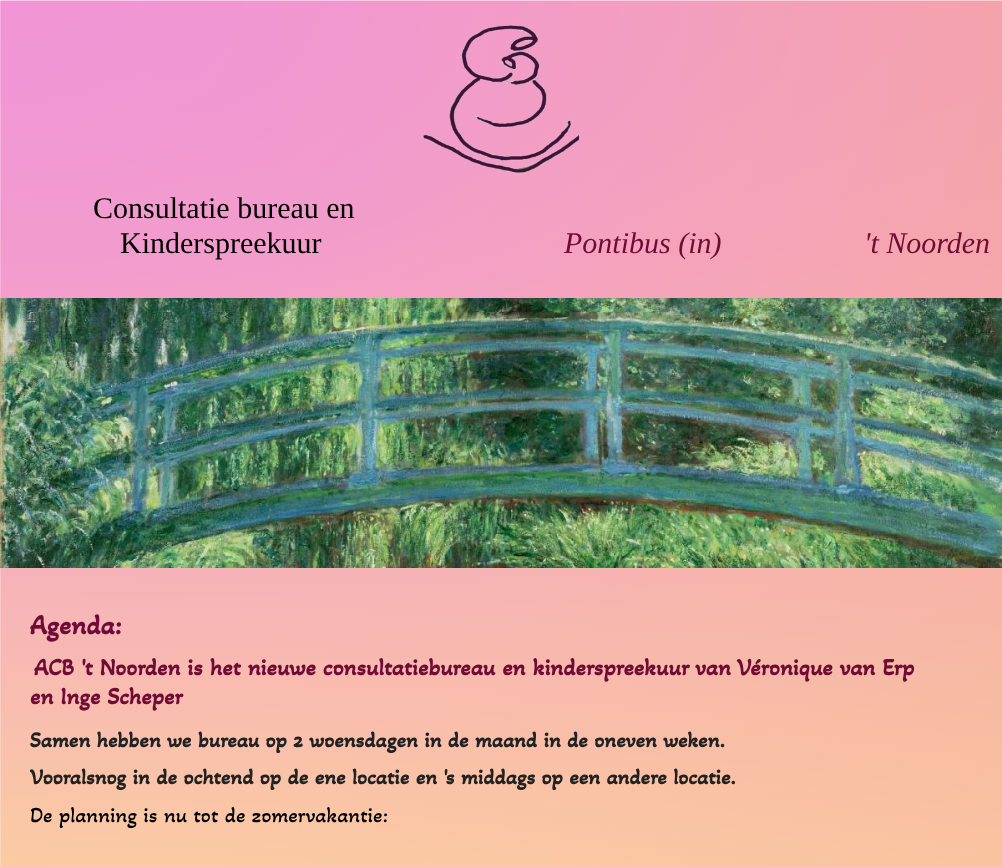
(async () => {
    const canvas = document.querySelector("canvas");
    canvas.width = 1002;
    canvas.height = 867;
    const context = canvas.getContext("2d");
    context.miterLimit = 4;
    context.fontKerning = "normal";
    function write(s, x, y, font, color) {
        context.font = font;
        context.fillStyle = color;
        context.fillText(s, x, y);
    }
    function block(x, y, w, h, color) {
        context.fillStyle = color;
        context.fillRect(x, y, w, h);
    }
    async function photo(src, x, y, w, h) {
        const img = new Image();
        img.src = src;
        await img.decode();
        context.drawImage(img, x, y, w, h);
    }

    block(0, 0, 1002, 867, "rgb(255, 255, 255)");
    await photo("media/1.png", 0, 0, 1002, 867);
    await photo("media/2.png", 421, 24, 158, 149);
    write("Consultatie bureau en", 93, 218, "30px Liberation Serif", "rgb(0, 0, 0)");
    write("Kinderspreekuur", 120, 253, "30px Liberation Serif", "rgb(0, 0, 0)");
    write("Pontibus (in)                   't Noorden", 564, 253, "italic 30px Liberation Serif", "rgb(112, 11, 54)");
    await photo("media/3.png", 0, 298, 1002, 270);
    write("Agenda:", 30, 634, "bold 28px Akaya Telivigala", "rgb(112, 11, 54)");
    write("ACB 't Noorden is het nieuwe consultatiebureau en kinderspreekuur van Véronique van Erp", 34, 675, "bold 24px Akaya Telivigala", "rgb(112, 11, 54)");
    write("en Inge Scheper", 30, 704, "bold 24px Akaya Telivigala", "rgb(112, 11, 54)");
    write("Samen hebben we bureau op 2 woensdagen in de maand in de oneven weken.", 30, 747, "bold 22px Akaya Telivigala", "rgb(34, 34, 34)");
    write("Vooralsnog in de ochtend op de ene locatie en 's middags op een andere locatie.", 30, 784, "bold 22px Akaya Telivigala", "rgb(34, 34, 34)");
    write("De planning is nu tot de zomervakantie:", 30, 822, "22px Akaya Telivigala", "rgb(0, 0, 0)");
})();
